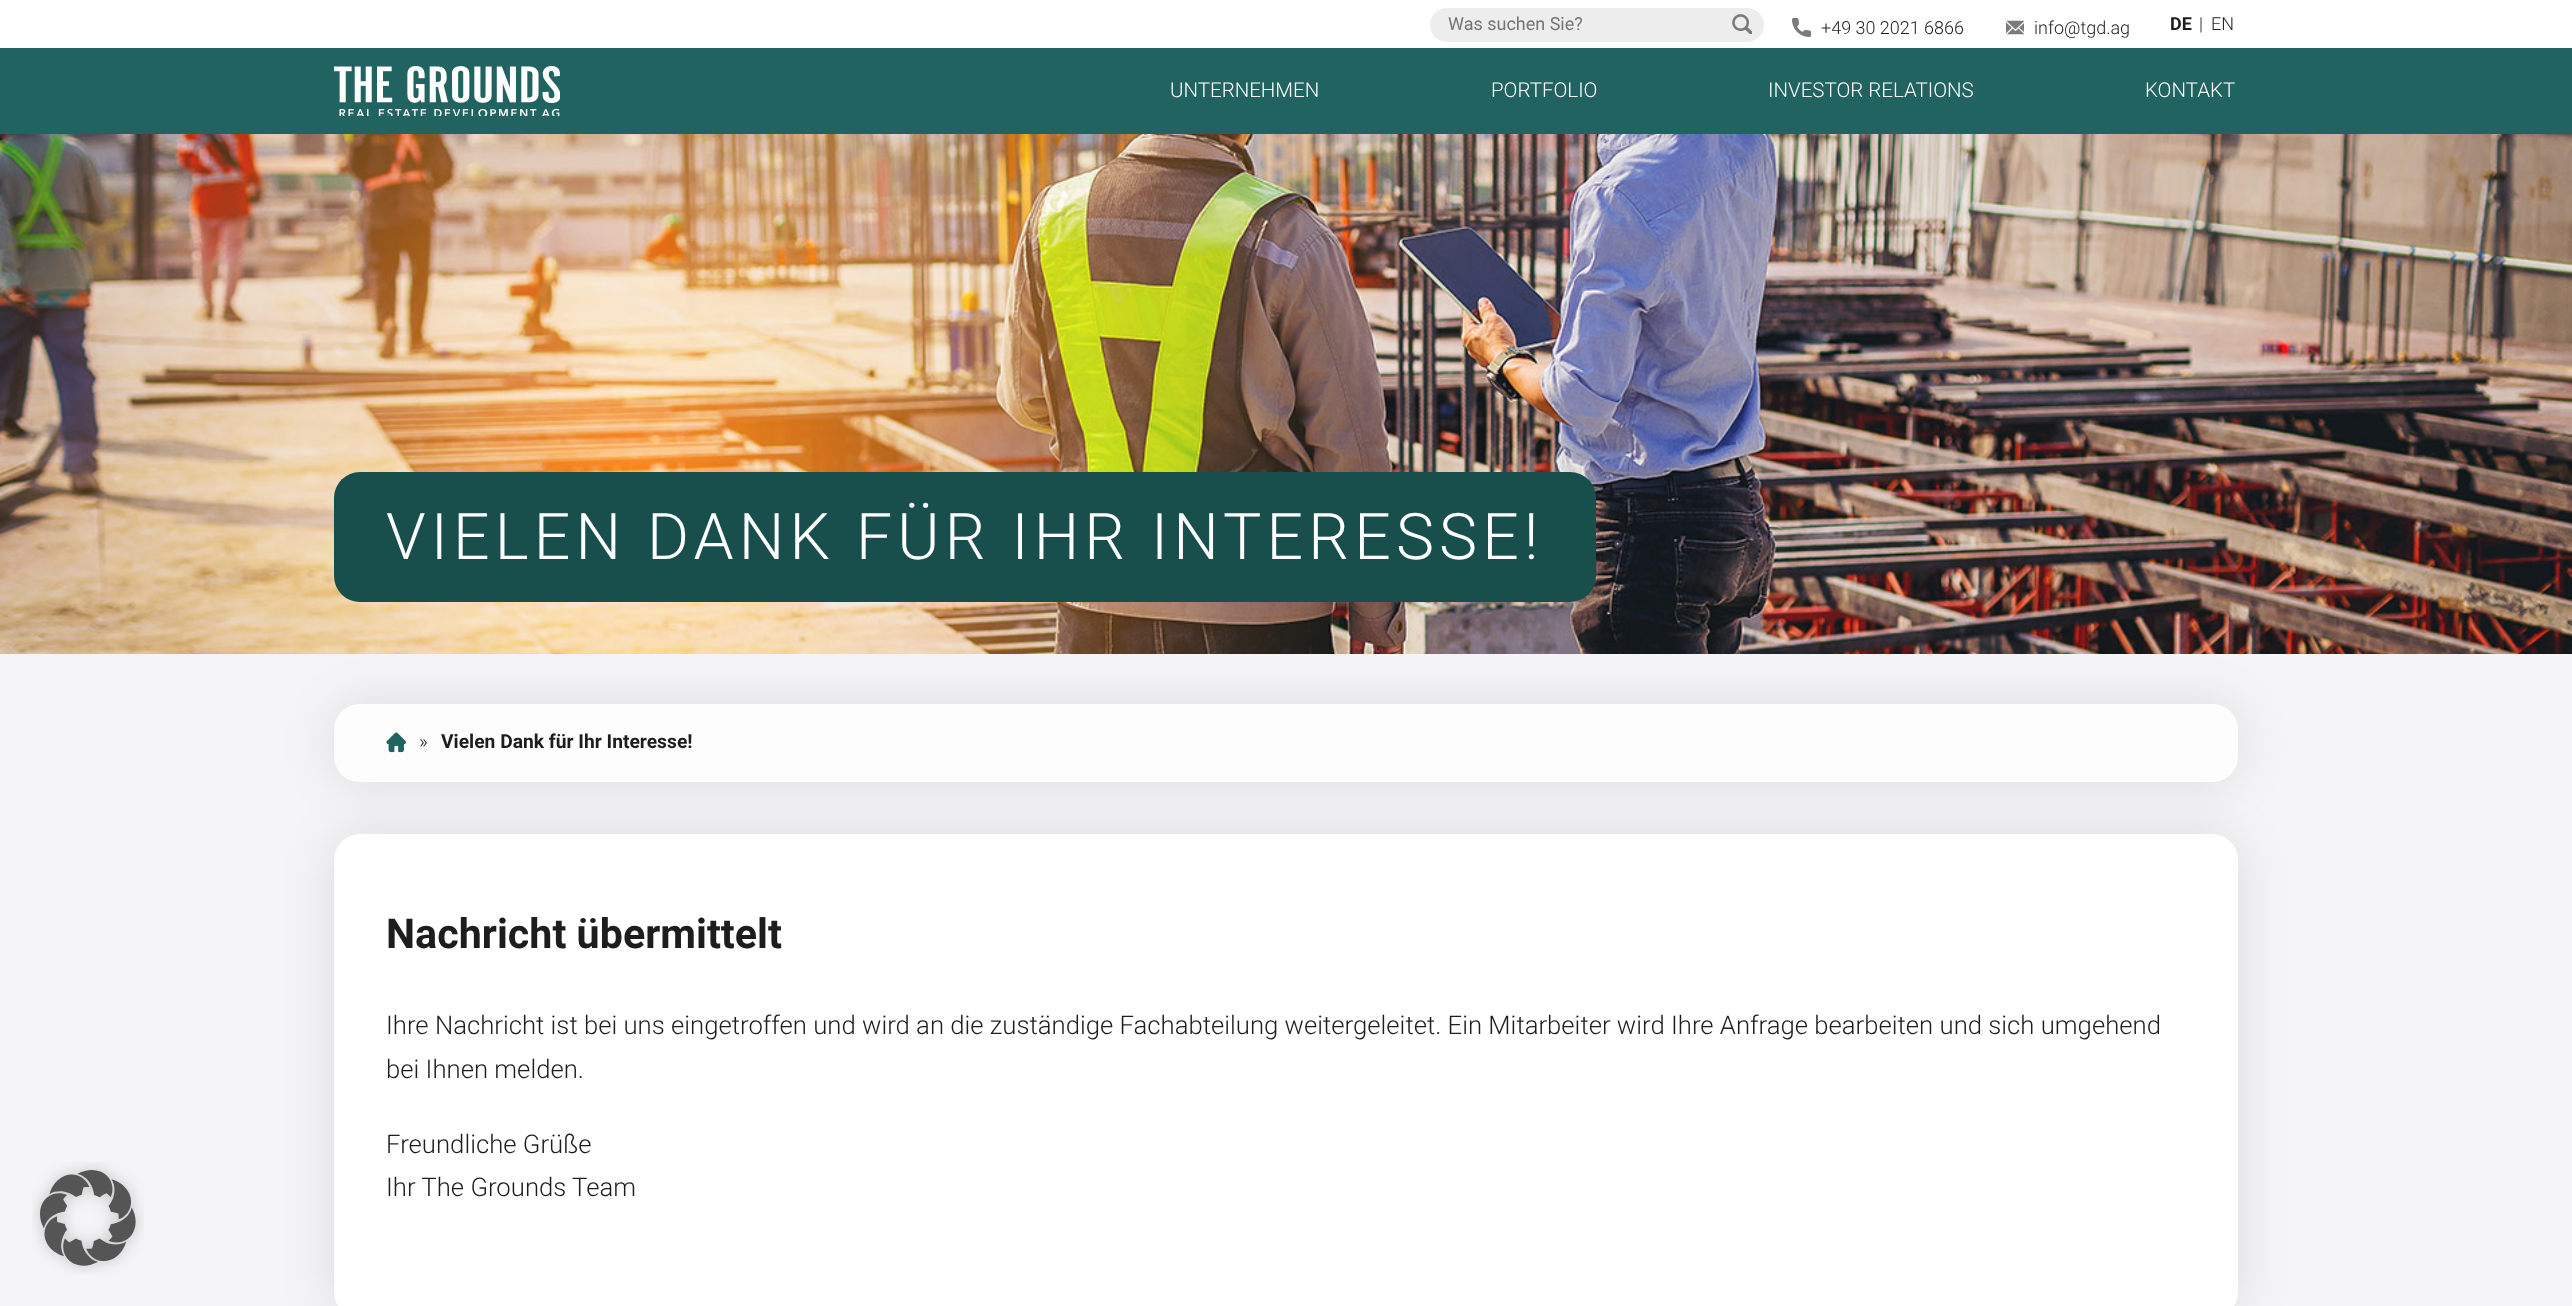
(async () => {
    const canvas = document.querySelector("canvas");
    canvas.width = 2572;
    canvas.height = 1306;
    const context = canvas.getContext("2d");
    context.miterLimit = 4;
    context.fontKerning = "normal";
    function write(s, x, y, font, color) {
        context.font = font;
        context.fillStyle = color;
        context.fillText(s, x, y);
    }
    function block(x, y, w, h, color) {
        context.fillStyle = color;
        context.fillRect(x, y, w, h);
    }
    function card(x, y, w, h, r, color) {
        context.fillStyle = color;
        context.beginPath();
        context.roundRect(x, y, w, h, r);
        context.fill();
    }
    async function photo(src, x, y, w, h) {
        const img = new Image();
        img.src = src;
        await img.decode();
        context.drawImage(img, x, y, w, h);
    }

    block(0, 0, 2572, 1306, "rgb(245, 245, 247)");
    block(0, 0, 2572, 48, "rgb(255, 255, 255)");
    card(1430, 8, 334, 34, 17, "rgb(237, 237, 237)");
    write("Was suchen Sie?", 1448, 30, "18px Roboto", "rgb(117, 117, 117)");
    await photo("media/1.png", 1732, 14, 20, 20);
    await photo("media/2.png", 1792, 18, 19, 19);
    write("+49 30 2021 6866", 1821, 34, "300 18px Roboto", "rgb(29, 29, 29)");
    await photo("media/3.png", 2006, 20, 18, 15);
    write("info@tgd.ag", 2034, 34, "300 18px Roboto", "rgb(29, 29, 29)");
    write("DE", 2170, 30, "bold 18px Roboto", "rgb(29, 29, 29)");
    write("|", 2199, 30, "300 18px Roboto", "rgb(29, 29, 29)");
    write("EN", 2211, 30, "300 18px Roboto", "rgb(29, 29, 29)");
    block(0, 48, 2572, 86, "rgb(32, 99, 97)");
    await photo("media/4.png", 334, 66, 226, 50);
    write("UNTERNEHMEN", 1170, 97, "300 20.5px Roboto", "rgb(255, 255, 255)");
    write("PORTFOLIO", 1491, 97, "300 20.5px Roboto", "rgb(255, 255, 255)");
    write("INVESTOR RELATIONS", 1768, 97, "300 20.5px Roboto", "rgb(255, 255, 255)");
    write("KONTAKT", 2145, 97, "300 20.5px Roboto", "rgb(255, 255, 255)");
    await photo("media/5.png", 0, 134, 2572, 520);
    card(334, 472, 1262, 130, 26, "rgb(24, 79, 77)");
    context.letterSpacing = "5.15px";
    write("VIELEN DANK FÜR IHR INTERESSE!", 386, 559, "300 64.25px Roboto", "rgb(255, 255, 255)");
    context.save();
    context.beginPath();
    context.moveTo(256, 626);
    context.lineTo(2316, 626);
    context.lineTo(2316, 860);
    context.lineTo(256, 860);
    context.closePath();
    context.moveTo(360, 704);
    context.lineTo(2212, 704);
    context.bezierCurveTo(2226.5, 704, 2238, 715.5, 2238, 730);
    context.lineTo(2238, 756);
    context.bezierCurveTo(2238, 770.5, 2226.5, 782, 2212, 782);
    context.lineTo(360, 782);
    context.bezierCurveTo(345.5, 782, 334, 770.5, 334, 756);
    context.lineTo(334, 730);
    context.bezierCurveTo(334, 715.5, 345.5, 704, 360, 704);
    context.closePath();
    context.clip("evenodd");
    context.fillStyle = "rgba(0, 0, 0, 0.1)";
    context.filter = "blur(25.5px)";
    context.beginPath();
    context.roundRect(334, 704, 1904, 78, 26);
    context.fill();
    context.filter = "none";
    context.restore();
    card(334, 704, 1904, 78, 26, "rgba(255, 255, 255, 0.8)");
    await photo("media/6.png", 386, 732, 20, 21);
    context.letterSpacing = "0px";
    write("»", 419, 748, "300 19.25px Roboto", "rgb(29, 29, 29)");
    write("Vielen Dank für Ihr Interesse!", 441, 748, "bold 19.25px Roboto", "rgb(29, 29, 29)");
    context.fillStyle = "rgba(0, 0, 0, 0.1)";
    context.filter = "blur(25.5px)";
    context.beginPath();
    context.roundRect(334, 834, 1904, 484, 26);
    context.fill();
    context.filter = "none";
    card(334, 834, 1904, 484, 26, "rgb(255, 255, 255)");
    write("Nachricht übermittelt", 386, 948, "bold 41.25px Roboto", "rgb(29, 29, 29)");
    write("Ihre Nachricht ist bei uns eingetroffen und wird an die zuständige Fachabteilung weitergeleitet. Ein Mitarbeiter wird Ihre Anfrage bearbeiten und sich umgehend", 386, 1034, "300 25.72px Roboto", "rgb(29, 29, 29)");
    write("bei Ihnen melden.", 386, 1078, "300 25.72px Roboto", "rgb(29, 29, 29)");
    write("Freundliche Grüße", 386, 1153, "300 25.72px Roboto", "rgb(29, 29, 29)");
    write("Ihr The Grounds Team", 386, 1196, "300 25.72px Roboto", "rgb(29, 29, 29)");
    await photo("media/7.png", 32, 1162, 112, 112);
})();
